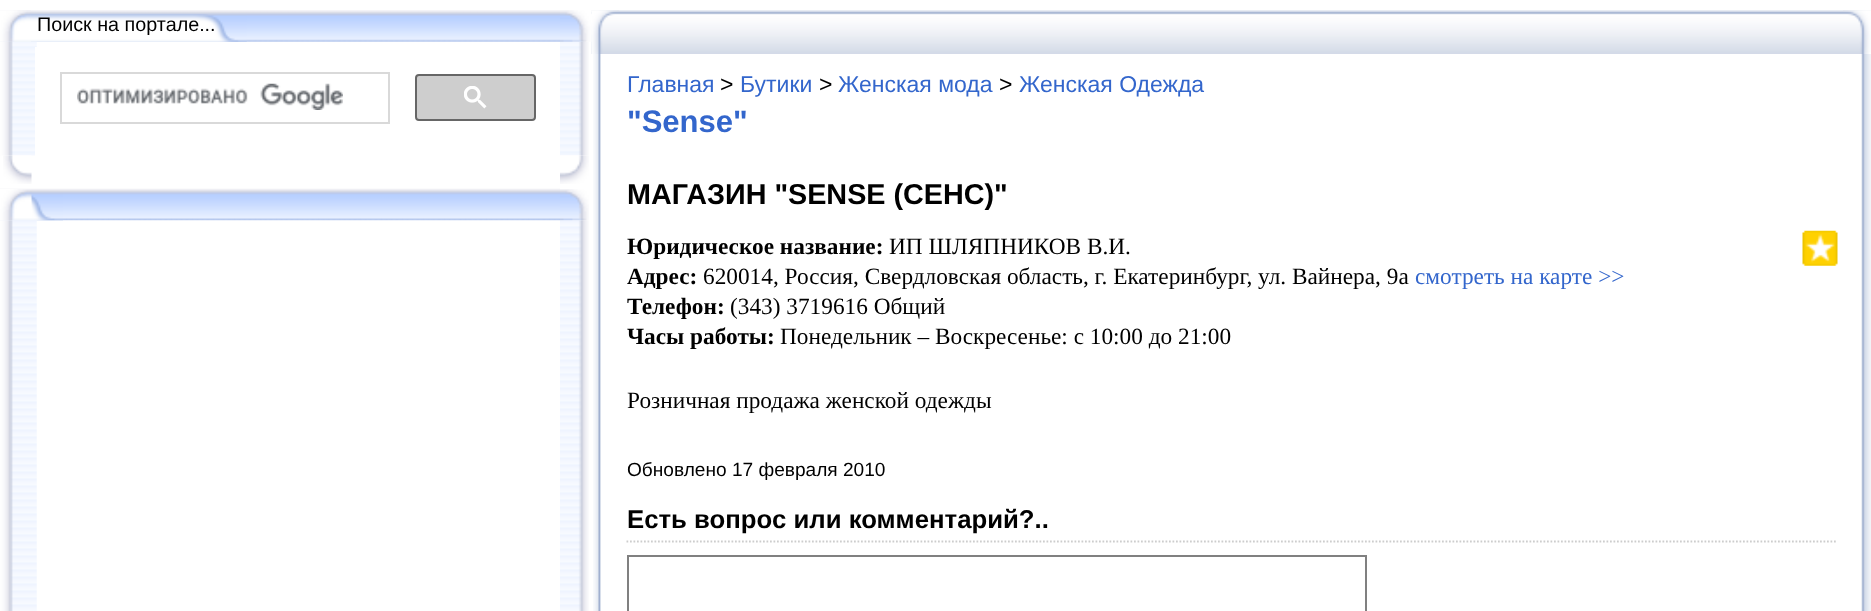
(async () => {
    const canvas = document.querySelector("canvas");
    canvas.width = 1871;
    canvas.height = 611;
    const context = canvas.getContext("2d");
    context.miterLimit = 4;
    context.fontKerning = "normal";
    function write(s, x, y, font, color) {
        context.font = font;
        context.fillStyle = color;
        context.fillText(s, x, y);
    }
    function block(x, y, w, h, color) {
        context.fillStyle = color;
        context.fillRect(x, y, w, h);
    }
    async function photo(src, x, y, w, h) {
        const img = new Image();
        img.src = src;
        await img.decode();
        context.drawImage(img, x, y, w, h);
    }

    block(0, 0, 1871, 611, "rgb(255, 255, 255)");
    await photo("media/1.png", 0, 10, 560, 32);
    await photo("media/2.png", 0, 14, 247, 28);
    await photo("media/5.png", 0, 41, 37, 115);
    await photo("media/3.png", 0, 10, 31, 32);
    write("Поиск на портале...", 37, 31, "19.75px Liberation Sans", "rgb(0, 0, 0)");
    await photo("media/8.png", 560, 41, 29, 115);
    await photo("media/17.png", 591, 10, 1280, 44);
    await photo("media/4.png", 560, 10, 32, 32);
    block(35, 47, 2, 109, "rgb(255, 255, 255)");
    context.strokeStyle = "rgb(217, 217, 217)";
    context.lineWidth = 2;
    context.strokeRect(61, 73, 328, 50);
    await photo("media/6.png", 77, 83, 266, 27);
    context.fillStyle = "rgb(206, 206, 206)";
    context.beginPath();
    context.roundRect(416, 75, 119, 45, 3);
    context.fill();
    context.strokeStyle = "rgb(102, 102, 102)";
    context.stroke();
    await photo("media/7.png", 464, 86, 23, 23);
    await photo("media/9.png", 3, 155, 29, 29);
    await photo("media/10.png", 560, 155, 29, 29);
    await photo("media/11.png", 0, 188, 560, 33);
    await photo("media/12.png", 0, 192, 63, 29);
    await photo("media/13.png", 0, 189, 32, 31);
    await photo("media/16.png", 560, 220, 29, 391);
    await photo("media/14.png", 560, 189, 29, 32);
    await photo("media/15.png", 0, 220, 37, 391);
    await photo("media/18.png", 1843, 10, 28, 44);
    await photo("media/19.png", 591, 10, 28, 44);
    await photo("media/20.png", 593, 54, 8, 557);
    await photo("media/21.png", 1861, 54, 10, 557);
    write("Главная", 627, 92, "23px Liberation Sans", "rgb(51, 102, 204)");
    write(">", 720, 92, "23px Liberation Sans", "rgb(0, 0, 0)");
    write("Бутики", 740, 92, "23px Liberation Sans", "rgb(51, 102, 204)");
    write(">", 819, 92, "23px Liberation Sans", "rgb(0, 0, 0)");
    write("Женская мода", 838, 92, "23px Liberation Sans", "rgb(51, 102, 204)");
    write(">", 999, 92, "23px Liberation Sans", "rgb(0, 0, 0)");
    write("Женская Одежда", 1019, 92, "23px Liberation Sans", "rgb(51, 102, 204)");
    write("\"Sense\"", 627, 132, "bold 31px Liberation Sans", "rgb(51, 102, 204)");
    write("МАГАЗИН \"SENSE (СЕНС)\"", 627, 204, "bold 28.75px Liberation Sans", "rgb(0, 0, 0)");
    write("Юридическое название:", 627, 254, "bold 23.3px Liberation Serif", "rgb(0, 0, 0)");
    write("ИП ШЛЯПНИКОВ В.И.", 889, 254, "23.3px Liberation Serif", "rgb(0, 0, 0)");
    write("Адрес:", 627, 284, "bold 23.3px Liberation Serif", "rgb(0, 0, 0)");
    write("620014, Россия, Свердловская область, г. Екатеринбург, ул. Вайнера, 9а", 703, 284, "23.3px Liberation Serif", "rgb(0, 0, 0)");
    write("смотреть на карте >>", 1415, 284, "23.3px Liberation Serif", "rgb(51, 102, 204)");
    write("Телефон:", 627, 314, "bold 23.3px Liberation Serif", "rgb(0, 0, 0)");
    write("(343) 3719616 Общий", 730, 314, "23.3px Liberation Serif", "rgb(0, 0, 0)");
    write("Часы работы:", 627, 344, "bold 23.3px Liberation Serif", "rgb(0, 0, 0)");
    write("Понедельник – Воскресенье: с 10:00 до 21:00", 780, 344, "23.3px Liberation Serif", "rgb(0, 0, 0)");
    await photo("media/22.png", 1802, 230, 36, 36);
    write("Розничная продажа женской одежды", 627, 408, "23.3px Liberation Serif", "rgb(0, 0, 0)");
    write("Обновлено 17 февраля 2010", 627, 476, "19.1px Liberation Sans", "rgb(0, 0, 0)");
    context.beginPath();
    context.moveTo(626.5, 541.5);
    context.lineTo(1837.5, 541.5);
    context.strokeStyle = "rgb(205, 205, 205)";
    context.lineWidth = 1.8;
    context.setLineDash([1.75, 1.75]);
    context.stroke();
    write("Есть вопрос или комментарий?..", 627, 528, "bold 25.75px Liberation Sans", "rgb(0, 0, 0)");
    context.strokeStyle = "rgb(128, 128, 128)";
    context.lineWidth = 2;
    context.setLineDash([]);
    context.strokeRect(628, 556, 738, 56);
})();
